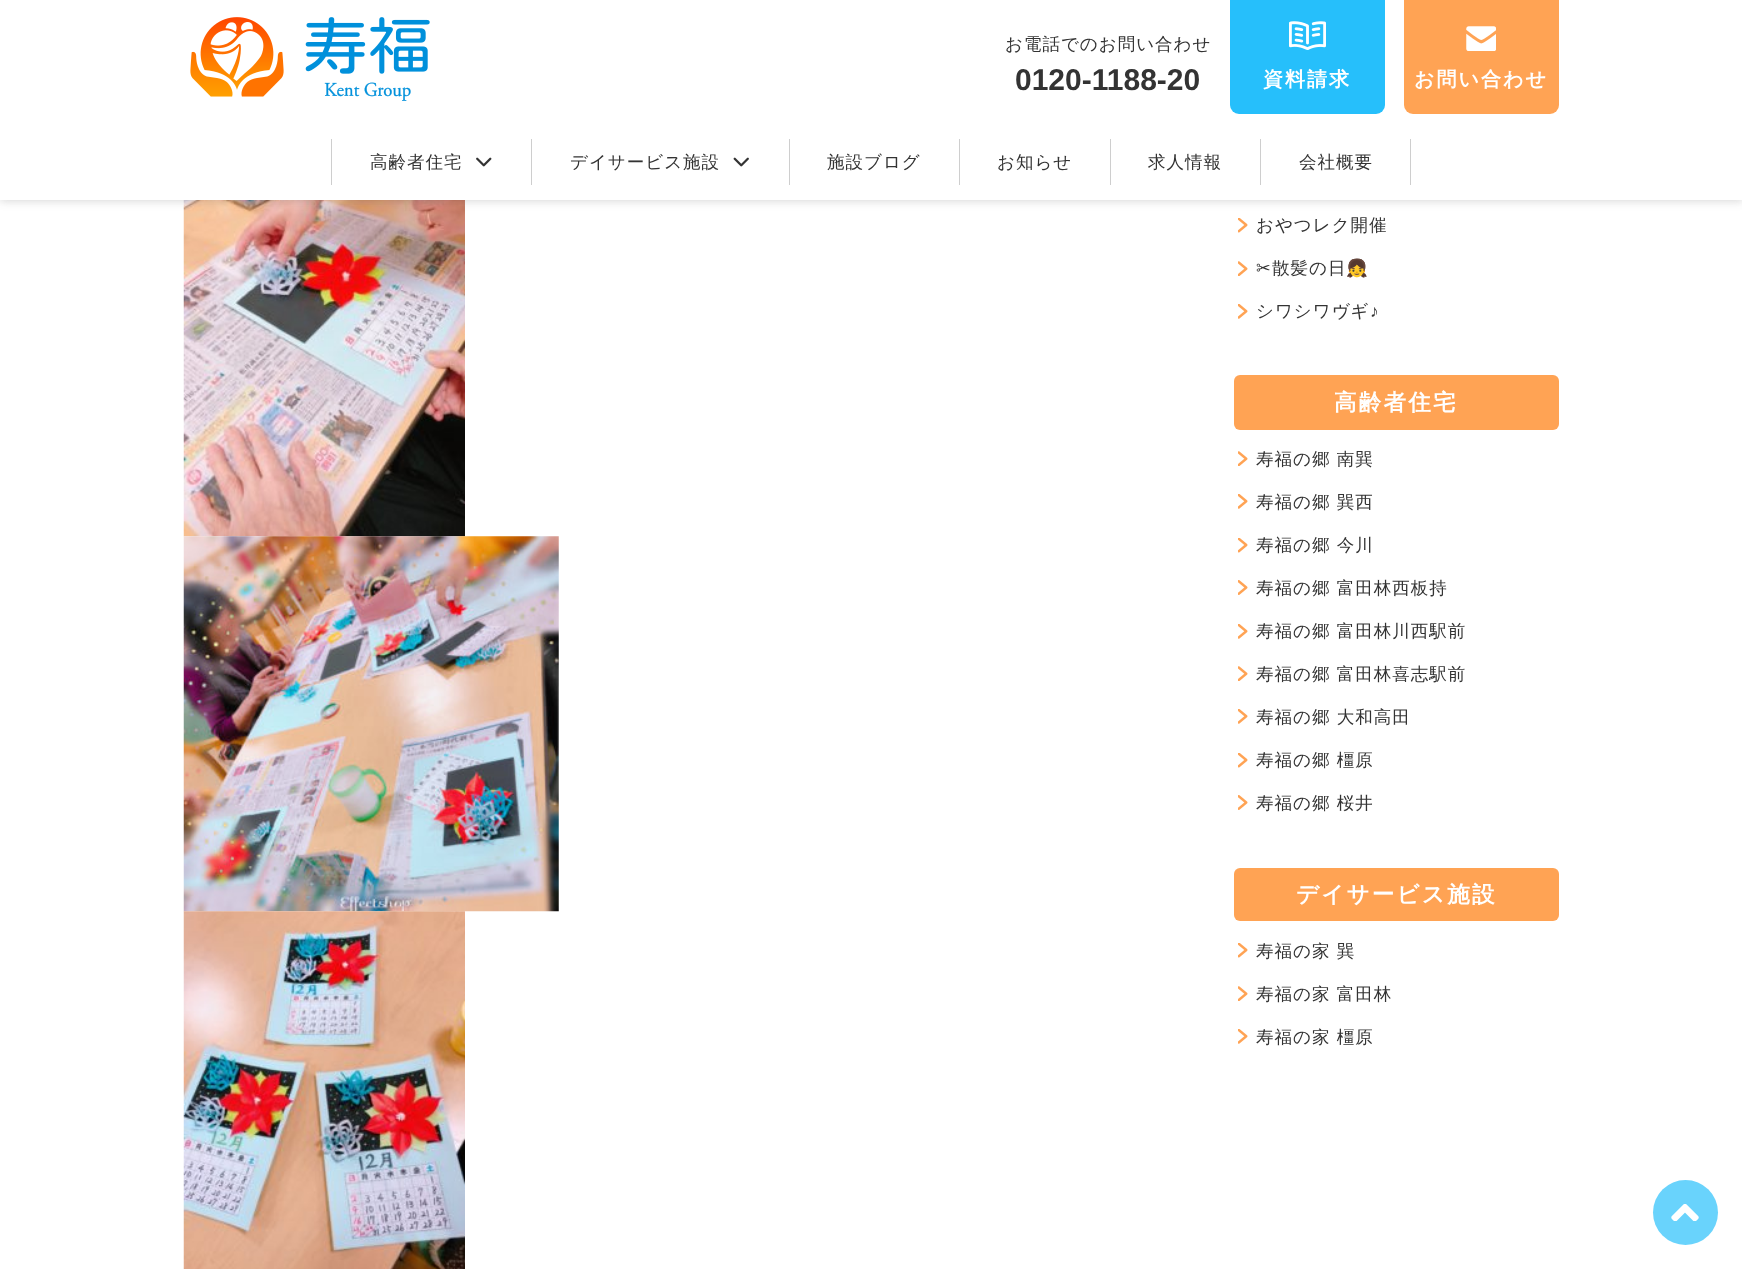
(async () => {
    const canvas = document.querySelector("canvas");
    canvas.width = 1742;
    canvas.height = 1269;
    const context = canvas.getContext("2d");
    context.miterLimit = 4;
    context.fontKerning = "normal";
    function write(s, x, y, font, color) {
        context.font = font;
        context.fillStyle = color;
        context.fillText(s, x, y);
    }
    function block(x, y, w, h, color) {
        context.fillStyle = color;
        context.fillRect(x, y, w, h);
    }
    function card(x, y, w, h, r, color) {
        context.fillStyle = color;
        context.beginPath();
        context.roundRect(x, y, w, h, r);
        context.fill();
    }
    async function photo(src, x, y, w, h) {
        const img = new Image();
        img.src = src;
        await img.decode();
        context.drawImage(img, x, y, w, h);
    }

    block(0, 0, 1742, 1269, "rgb(255, 255, 255)");
    await photo("media/6.png", 183, 200, 282, 337);
    context.fillStyle = "rgba(51, 51, 51, 0.2)";
    context.filter = "blur(5px)";
    context.beginPath();
    context.rect(0, 1, 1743, 200);
    context.fill();
    context.filter = "none";
    block(0, 0, 1742, 200, "rgb(255, 255, 255)");
    await photo("media/1.png", 190, 17, 240, 84);
    context.letterSpacing = "1px";
    write("お電話でのお問い合わせ", 1005, 50, "500 17.5px WenQuanYi Zen Hei", "rgb(51, 51, 51)");
    context.letterSpacing = "0px";
    write("0120-1188-20", 1015, 90, "bold 30px Liberation Sans", "rgb(51, 51, 51)");
    context.fillStyle = "rgb(38, 191, 251)";
    context.beginPath();
    context.roundRect(1230, 0, 155, 114, [0, 0, 9, 9]);
    context.fill();
    await photo("media/2.png", 1289, 21, 37, 29);
    context.letterSpacing = "2px";
    write("資料請求", 1263, 86, "bold 20px WenQuanYi Zen Hei", "rgb(255, 255, 255)");
    context.fillStyle = "rgb(255, 163, 84)";
    context.beginPath();
    context.roundRect(1404, 0, 155, 114, [0, 0, 9, 9]);
    context.fill();
    await photo("media/3.png", 1466, 26, 30, 25);
    write("お問い合わせ", 1414, 86, "bold 20px WenQuanYi Zen Hei", "rgb(255, 255, 255)");
    block(331, 139, 1, 46, "rgb(206, 206, 206)");
    context.letterSpacing = "1px";
    write("高齢者住宅", 370, 168, "500 17.5px WenQuanYi Zen Hei", "rgb(51, 51, 51)");
    await photo("media/4.png", 476, 157, 16, 10);
    block(531, 139, 1, 46, "rgb(206, 206, 206)");
    write("デイサービス施設", 570, 168, "500 17.5px WenQuanYi Zen Hei", "rgb(51, 51, 51)");
    await photo("media/5.png", 733, 157, 16, 10);
    block(789, 139, 1, 46, "rgb(206, 206, 206)");
    write("施設ブログ", 827, 168, "500 17.5px WenQuanYi Zen Hei", "rgb(51, 51, 51)");
    block(959, 139, 1, 46, "rgb(206, 206, 206)");
    write("お知らせ", 997, 168, "500 17.5px WenQuanYi Zen Hei", "rgb(51, 51, 51)");
    block(1110, 139, 1, 46, "rgb(206, 206, 206)");
    write("求人情報", 1148, 168, "500 17.5px WenQuanYi Zen Hei", "rgb(51, 51, 51)");
    block(1410, 139, 1, 46, "rgb(206, 206, 206)");
    block(1260, 139, 1, 46, "rgb(206, 206, 206)");
    write("会社概要", 1299, 168, "500 17.5px WenQuanYi Zen Hei", "rgb(51, 51, 51)");
    await photo("media/7.png", 183, 536, 376, 376);
    await photo("media/8.png", 183, 911, 282, 358);
    await photo("media/9.png", 1238, 218, 10, 15);
    write("おやつレク開催", 1256, 231, "500 17.5px WenQuanYi Zen Hei", "rgb(51, 51, 51)");
    await photo("media/10.png", 1238, 261, 10, 15);
    write("✂", 1256, 274, "17.5px DejaVu Sans", "rgb(51, 51, 51)");
    write("散髪の日", 1272, 274, "500 17.5px WenQuanYi Zen Hei", "rgb(51, 51, 51)");
    write("👧", 1346, 274, "17.5px Noto Color Emoji", "rgb(51, 51, 51)");
    await photo("media/11.png", 1238, 304, 10, 15);
    write("シワシワヴギ", 1256, 317, "500 17.5px WenQuanYi Zen Hei", "rgb(51, 51, 51)");
    write("♪", 1370, 317, "17.5px Liberation Sans", "rgb(51, 51, 51)");
    card(1234, 375, 325, 55, 6, "rgb(255, 163, 84)");
    context.letterSpacing = "2.25px";
    write("高齢者住宅", 1334, 410, "bold 22.5px WenQuanYi Zen Hei", "rgb(255, 255, 255)");
    await photo("media/10.png", 1238, 451, 10, 15);
    context.letterSpacing = "1px";
    write("寿福の郷 南巽", 1256, 465, "500 17.5px WenQuanYi Zen Hei", "rgb(51, 51, 51)");
    await photo("media/11.png", 1238, 494, 10, 15);
    write("寿福の郷 巽西", 1256, 508, "500 17.5px WenQuanYi Zen Hei", "rgb(51, 51, 51)");
    await photo("media/9.png", 1238, 538, 10, 15);
    write("寿福の郷 今川", 1256, 551, "500 17.5px WenQuanYi Zen Hei", "rgb(51, 51, 51)");
    await photo("media/12.png", 1238, 580, 10, 15);
    write("寿福の郷 富田林西板持", 1256, 594, "500 17.5px WenQuanYi Zen Hei", "rgb(51, 51, 51)");
    await photo("media/11.png", 1238, 624, 10, 15);
    write("寿福の郷 富田林川西駅前", 1256, 637, "500 17.5px WenQuanYi Zen Hei", "rgb(51, 51, 51)");
    await photo("media/10.png", 1238, 666, 10, 15);
    write("寿福の郷 富田林喜志駅前", 1256, 680, "500 17.5px WenQuanYi Zen Hei", "rgb(51, 51, 51)");
    await photo("media/11.png", 1238, 709, 10, 15);
    write("寿福の郷 大和高田", 1256, 723, "500 17.5px WenQuanYi Zen Hei", "rgb(51, 51, 51)");
    await photo("media/9.png", 1238, 753, 10, 15);
    write("寿福の郷 橿原", 1256, 766, "500 17.5px WenQuanYi Zen Hei", "rgb(51, 51, 51)");
    await photo("media/12.png", 1238, 795, 10, 15);
    write("寿福の郷 桜井", 1256, 809, "500 17.5px WenQuanYi Zen Hei", "rgb(51, 51, 51)");
    card(1234, 868, 325, 53, 6, "rgb(255, 163, 84)");
    context.letterSpacing = "2.25px";
    write("デイサービス施設", 1296, 902, "bold 22.5px WenQuanYi Zen Hei", "rgb(255, 255, 255)");
    await photo("media/9.png", 1238, 943, 10, 15);
    context.letterSpacing = "1px";
    write("寿福の家 巽", 1256, 957, "500 17.5px WenQuanYi Zen Hei", "rgb(51, 51, 51)");
    await photo("media/10.png", 1238, 986, 10, 15);
    write("寿福の家 富田林", 1256, 1000, "500 17.5px WenQuanYi Zen Hei", "rgb(51, 51, 51)");
    await photo("media/11.png", 1238, 1029, 10, 15);
    write("寿福の家 橿原", 1256, 1043, "500 17.5px WenQuanYi Zen Hei", "rgb(51, 51, 51)");
    context.fillStyle = "rgb(105, 211, 252)";
    context.beginPath();
    context.arc(1685.5, 1212.5, 32.5, 0, Math.PI * 2);
    context.fill();
    await photo("media/13.png", 1671, 1204, 28, 17);
})();
